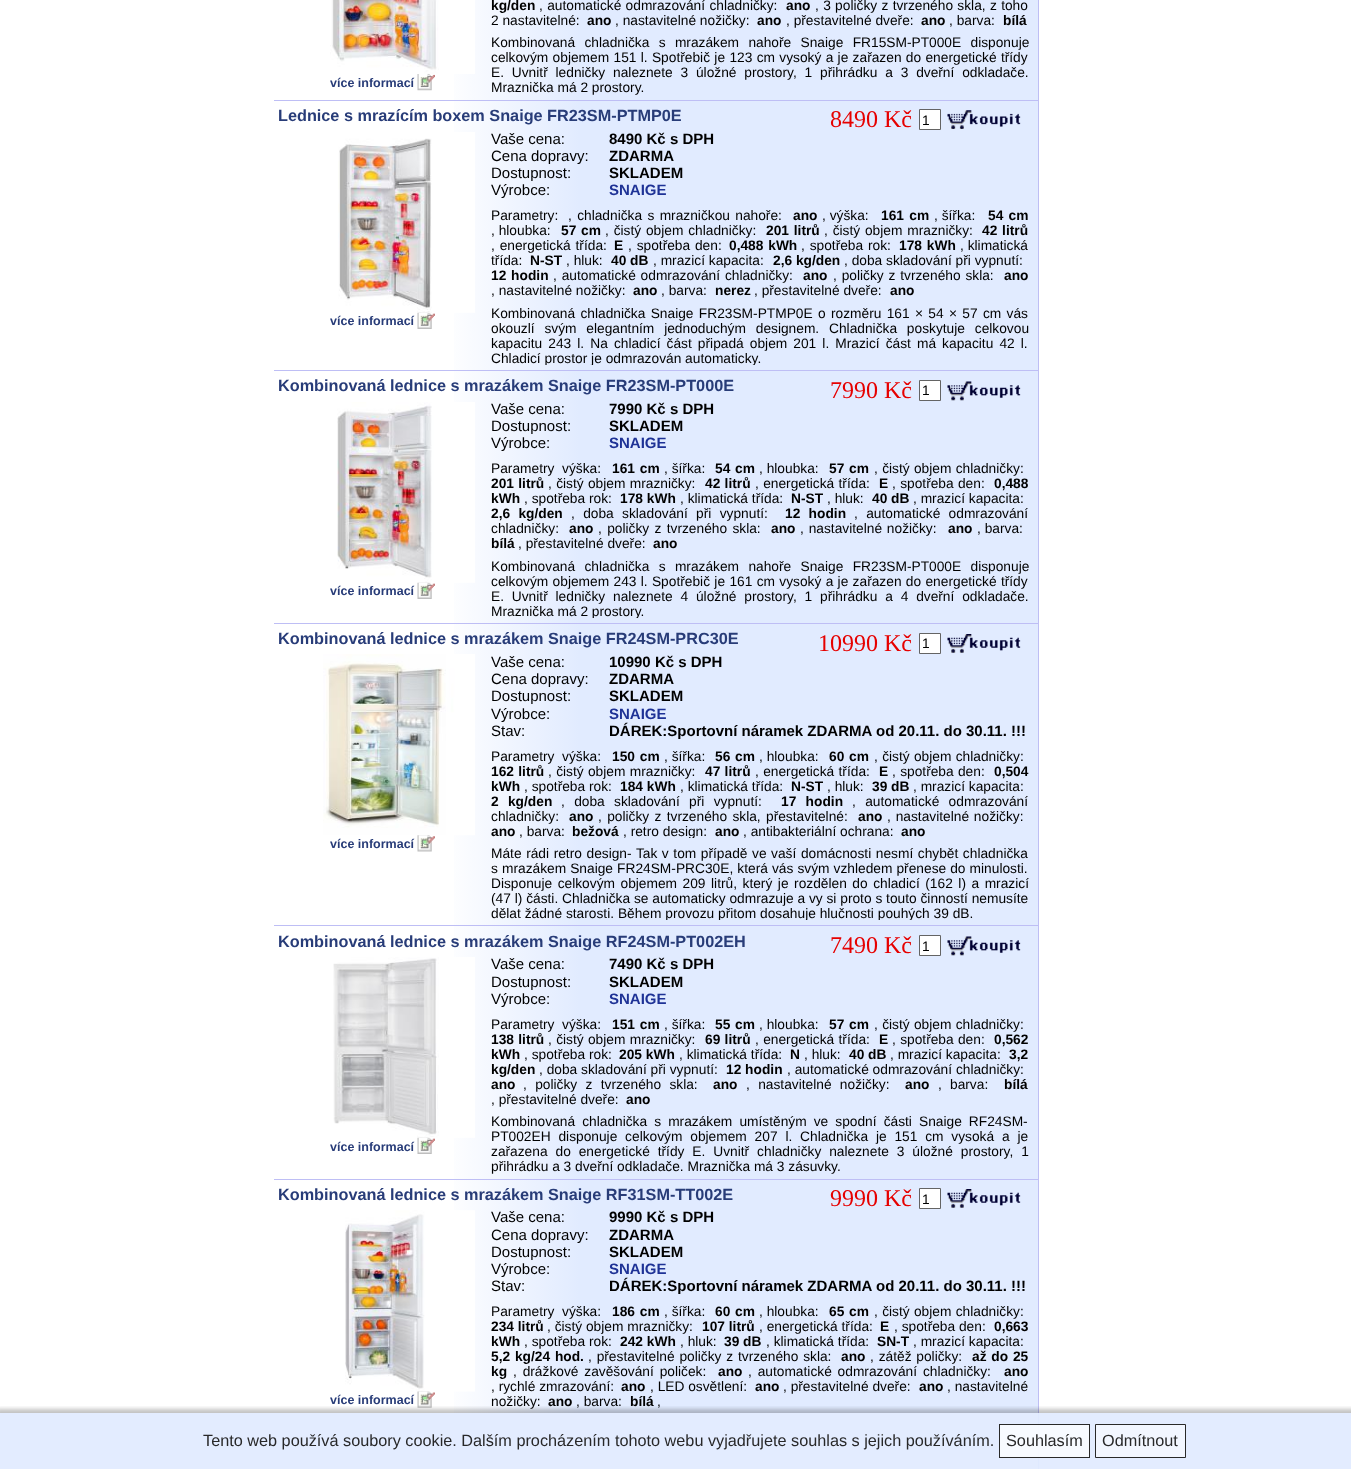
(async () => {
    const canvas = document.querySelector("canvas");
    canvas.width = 1351;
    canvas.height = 1469;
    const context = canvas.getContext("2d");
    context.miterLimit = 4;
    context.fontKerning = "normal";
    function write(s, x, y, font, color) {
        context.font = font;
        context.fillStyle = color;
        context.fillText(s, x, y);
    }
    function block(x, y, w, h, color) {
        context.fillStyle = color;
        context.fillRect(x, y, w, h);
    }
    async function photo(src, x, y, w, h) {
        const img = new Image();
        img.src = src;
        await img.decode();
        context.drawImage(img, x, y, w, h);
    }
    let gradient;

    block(0, 0, 1351, 1469, "rgb(255, 255, 255)");
    block(0, 1413, 1351, 56, "rgb(227, 236, 255)");
    gradient = context.createLinearGradient(274, -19, 1038, -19);
    gradient.addColorStop(0, "rgb(255, 255, 255)");
    gradient.addColorStop(0.22, "rgb(255, 255, 255)");
    gradient.addColorStop(0.4, "rgb(225, 235, 255)");
    gradient.addColorStop(1, "rgb(225, 235, 255)");
    context.fillStyle = gradient;
    context.fillRect(454, 0, 584, 100);
    block(1038, 0, 1, 1413, "rgb(190, 190, 245)");
    block(274, 100, 765, 1, "rgb(190, 190, 245)");
    await photo("media/1.png", 330, 0, 145, 74);
    write("více informací", 330, 87, "bold 12.5px Liberation Sans", "rgb(40, 60, 120)");
    await photo("media/2.png", 417, 74, 18, 17);
    write("kg/den", 491, 10, "bold 13.75px Liberation Sans", "rgb(0, 0, 0)");
    context.wordSpacing = "0.5px";
    write(", automatické odmrazování chladničky:", 539, 10, "13.75px Liberation Sans", "rgb(0, 0, 0)");
    context.wordSpacing = "0px";
    write("ano", 786, 10, "bold 13.75px Liberation Sans", "rgb(0, 0, 0)");
    context.wordSpacing = "0.5px";
    write(", 3 poličky z tvrzeného skla, z toho", 815, 10, "13.75px Liberation Sans", "rgb(0, 0, 0)");
    context.wordSpacing = "0px";
    write("2 nastavitelné:", 491, 25, "13.75px Liberation Sans", "rgb(0, 0, 0)");
    write("ano", 587, 25, "bold 13.75px Liberation Sans", "rgb(0, 0, 0)");
    write(", nastavitelné nožičky:", 615, 25, "13.75px Liberation Sans", "rgb(0, 0, 0)");
    write("ano", 757, 25, "bold 13.75px Liberation Sans", "rgb(0, 0, 0)");
    write(", přestavitelné dveře:", 786, 25, "13.75px Liberation Sans", "rgb(0, 0, 0)");
    write("ano", 921, 25, "bold 13.75px Liberation Sans", "rgb(0, 0, 0)");
    write(", barva:", 949, 25, "13.75px Liberation Sans", "rgb(0, 0, 0)");
    write("bílá", 1003, 25, "bold 13.75px Liberation Sans", "rgb(0, 0, 0)");
    context.wordSpacing = "5.5px";
    write("Kombinovaná chladnička s mrazákem nahoře Snaige FR15SM-PT000E disponuje", 491, 47, "13.75px Liberation Sans", "rgb(0, 0, 0)");
    context.wordSpacing = "0.5px";
    write("celkovým objemem 151 l. Spotřebič je 123 cm vysoký a je zařazen do energetické třídy", 491, 62, "13.75px Liberation Sans", "rgb(0, 0, 0)");
    context.wordSpacing = "4px";
    write("E. Uvnitř ledničky naleznete 3 úložné prostory, 1 přihrádku a 3 dveřní odkladače.", 491, 77, "13.75px Liberation Sans", "rgb(0, 0, 0)");
    context.wordSpacing = "0px";
    write("Mraznička má 2 prostory.", 491, 92, "13.75px Liberation Sans", "rgb(0, 0, 0)");
    gradient = context.createLinearGradient(274, 236, 1038, 236);
    gradient.addColorStop(0, "rgb(255, 255, 255)");
    gradient.addColorStop(0.22, "rgb(255, 255, 255)");
    gradient.addColorStop(0.4, "rgb(225, 235, 255)");
    gradient.addColorStop(1, "rgb(225, 235, 255)");
    context.fillStyle = gradient;
    context.fillRect(454, 101, 584, 269);
    block(274, 370, 765, 1, "rgb(190, 190, 245)");
    write("Lednice s mrazícím boxem Snaige FR23SM-PTMP0E", 278, 121, "bold 16.25px Liberation Sans", "rgb(40, 60, 120)");
    write("8490 Kč", 830, 127, "24px Liberation Serif", "rgb(230, 0, 0)");
    context.fillStyle = "rgb(255, 255, 255)";
    context.beginPath();
    context.rect(919.5, 109.5, 21, 20);
    context.fill();
    context.strokeStyle = "rgb(100, 100, 100)";
    context.stroke();
    write("1", 922, 125, "13.75px Liberation Sans", "rgb(0, 0, 0)");
    await photo("media/3.png", 947, 110, 74, 19);
    await photo("media/5.png", 417, 312, 18, 17);
    await photo("media/4.png", 338, 132, 137, 181);
    write("více informací", 330, 325, "bold 12.5px Liberation Sans", "rgb(40, 60, 120)");
    write("Vaše cena:", 491, 144, "15px Liberation Sans", "rgb(0, 0, 0)");
    write("8490 Kč s DPH", 609, 144, "bold 15px Liberation Sans", "rgb(0, 0, 0)");
    write("Cena dopravy:", 491, 161, "15px Liberation Sans", "rgb(0, 0, 0)");
    write("ZDARMA", 609, 161, "bold 15px Liberation Sans", "rgb(0, 0, 0)");
    write("Dostupnost:", 491, 178, "15px Liberation Sans", "rgb(0, 0, 0)");
    write("SKLADEM", 609, 178, "bold 15px Liberation Sans", "rgb(0, 0, 0)");
    write("Výrobce:", 491, 195, "15px Liberation Sans", "rgb(0, 0, 0)");
    write("SNAIGE", 609, 195, "bold 15px Liberation Sans", "rgb(30, 50, 150)");
    write("Parametry:", 491, 220, "13.75px Liberation Sans", "rgb(0, 0, 0)");
    context.wordSpacing = "1.5px";
    write(", chladnička s mrazničkou nahoře:", 568, 220, "13.75px Liberation Sans", "rgb(0, 0, 0)");
    context.wordSpacing = "0px";
    write("ano", 793, 220, "bold 13.75px Liberation Sans", "rgb(0, 0, 0)");
    write(", výška:", 822, 220, "13.75px Liberation Sans", "rgb(0, 0, 0)");
    context.wordSpacing = "1.5px";
    write("161 cm", 881, 220, "bold 13.75px Liberation Sans", "rgb(0, 0, 0)");
    context.wordSpacing = "0px";
    write(", šířka:", 934, 220, "13.75px Liberation Sans", "rgb(0, 0, 0)");
    context.wordSpacing = "1.5px";
    write("54 cm", 988, 220, "bold 13.75px Liberation Sans", "rgb(0, 0, 0)");
    context.wordSpacing = "0px";
    write(", hloubka:", 491, 235, "13.75px Liberation Sans", "rgb(0, 0, 0)");
    context.wordSpacing = "1px";
    write("57 cm", 561, 235, "bold 13.75px Liberation Sans", "rgb(0, 0, 0)");
    write(", čistý objem chladničky:", 605, 235, "13.75px Liberation Sans", "rgb(0, 0, 0)");
    write("201 litrů", 766, 235, "bold 13.75px Liberation Sans", "rgb(0, 0, 0)");
    write(", čistý objem mrazničky:", 824, 235, "13.75px Liberation Sans", "rgb(0, 0, 0)");
    write("42 litrů", 982, 235, "bold 13.75px Liberation Sans", "rgb(0, 0, 0)");
    write(", energetická třída:", 491, 250, "13.75px Liberation Sans", "rgb(0, 0, 0)");
    context.wordSpacing = "0px";
    write("E", 614, 250, "bold 13.75px Liberation Sans", "rgb(0, 0, 0)");
    context.wordSpacing = "1px";
    write(", spotřeba den:", 628, 250, "13.75px Liberation Sans", "rgb(0, 0, 0)");
    write("0,488 kWh", 729, 250, "bold 13.75px Liberation Sans", "rgb(0, 0, 0)");
    write(", spotřeba rok:", 801, 250, "13.75px Liberation Sans", "rgb(0, 0, 0)");
    write("178 kWh", 899, 250, "bold 13.75px Liberation Sans", "rgb(0, 0, 0)");
    context.wordSpacing = "0px";
    write(", klimatická", 960, 250, "13.75px Liberation Sans", "rgb(0, 0, 0)");
    write("třída:", 491, 265, "13.75px Liberation Sans", "rgb(0, 0, 0)");
    write("N-ST", 530, 265, "bold 13.75px Liberation Sans", "rgb(0, 0, 0)");
    write(", hluk:", 566, 265, "13.75px Liberation Sans", "rgb(0, 0, 0)");
    write("40 dB", 611, 265, "bold 13.75px Liberation Sans", "rgb(0, 0, 0)");
    write(", mrazicí kapacita:", 653, 265, "13.75px Liberation Sans", "rgb(0, 0, 0)");
    write("2,6 kg/den", 773, 265, "bold 13.75px Liberation Sans", "rgb(0, 0, 0)");
    write(", doba skladování při vypnutí:", 844, 265, "13.75px Liberation Sans", "rgb(0, 0, 0)");
    context.wordSpacing = "1px";
    write("12 hodin", 491, 280, "bold 13.75px Liberation Sans", "rgb(0, 0, 0)");
    write(", automatické odmrazování chladničky:", 553, 280, "13.75px Liberation Sans", "rgb(0, 0, 0)");
    context.wordSpacing = "0px";
    write("ano", 803, 280, "bold 13.75px Liberation Sans", "rgb(0, 0, 0)");
    context.wordSpacing = "1px";
    write(", poličky z tvrzeného skla:", 833, 280, "13.75px Liberation Sans", "rgb(0, 0, 0)");
    context.wordSpacing = "0px";
    write("ano", 1004, 280, "bold 13.75px Liberation Sans", "rgb(0, 0, 0)");
    write(", nastavitelné nožičky:", 491, 295, "13.75px Liberation Sans", "rgb(0, 0, 0)");
    write("ano", 633, 295, "bold 13.75px Liberation Sans", "rgb(0, 0, 0)");
    write(", barva:", 661, 295, "13.75px Liberation Sans", "rgb(0, 0, 0)");
    write("nerez", 715, 295, "bold 13.75px Liberation Sans", "rgb(0, 0, 0)");
    write(", přestavitelné dveře:", 754, 295, "13.75px Liberation Sans", "rgb(0, 0, 0)");
    write("ano", 890, 295, "bold 13.75px Liberation Sans", "rgb(0, 0, 0)");
    context.wordSpacing = "1.5px";
    write("Kombinovaná chladnička Snaige FR23SM-PTMP0E o rozměru 161 × 54 × 57 cm vás", 491, 318, "13.75px Liberation Sans", "rgb(0, 0, 0)");
    context.wordSpacing = "6px";
    write("okouzlí svým elegantním jednoduchým designem. Chladnička poskytuje celkovou", 491, 333, "13.75px Liberation Sans", "rgb(0, 0, 0)");
    context.wordSpacing = "2.25px";
    write("kapacitu 243 l. Na chladicí část připadá objem 201 l. Mrazicí část má kapacitu 42 l.", 491, 348, "13.75px Liberation Sans", "rgb(0, 0, 0)");
    context.save();
    context.beginPath();
    context.rect(491, 298, 538, 67);
    context.clip();
    context.wordSpacing = "0px";
    write("Chladicí prostor je odmrazován automaticky.", 491, 363, "13.75px Liberation Sans", "rgb(0, 0, 0)");
    context.restore();
    gradient = context.createLinearGradient(274, 497, 1038, 497);
    gradient.addColorStop(0, "rgb(255, 255, 255)");
    gradient.addColorStop(0.22, "rgb(255, 255, 255)");
    gradient.addColorStop(0.4, "rgb(225, 235, 255)");
    gradient.addColorStop(1, "rgb(225, 235, 255)");
    context.fillStyle = gradient;
    context.fillRect(454, 371, 584, 252);
    block(274, 623, 765, 1, "rgb(190, 190, 245)");
    context.wordSpacing = "0px";
    write("Kombinovaná lednice s mrazákem Snaige FR23SM-PT000E", 278, 391, "bold 16.25px Liberation Sans", "rgb(40, 60, 120)");
    write("7990 Kč", 830, 398, "24px Liberation Serif", "rgb(230, 0, 0)");
    context.fillStyle = "rgb(255, 255, 255)";
    context.beginPath();
    context.rect(919.5, 380.5, 21, 20);
    context.fill();
    context.stroke();
    write("1", 922, 395, "13.75px Liberation Sans", "rgb(0, 0, 0)");
    await photo("media/6.png", 947, 381, 74, 20);
    await photo("media/5.png", 417, 582, 18, 17);
    await photo("media/7.png", 337, 402, 138, 181);
    write("více informací", 330, 595, "bold 12.5px Liberation Sans", "rgb(40, 60, 120)");
    write("Vaše cena:", 491, 414, "15px Liberation Sans", "rgb(0, 0, 0)");
    write("7990 Kč s DPH", 609, 414, "bold 15px Liberation Sans", "rgb(0, 0, 0)");
    write("Dostupnost:", 491, 431, "15px Liberation Sans", "rgb(0, 0, 0)");
    write("SKLADEM", 609, 431, "bold 15px Liberation Sans", "rgb(0, 0, 0)");
    write("Výrobce:", 491, 448, "15px Liberation Sans", "rgb(0, 0, 0)");
    write("SNAIGE", 609, 448, "bold 15px Liberation Sans", "rgb(30, 50, 150)");
    write("Parametry  výška:", 491, 473, "13.75px Liberation Sans", "rgb(0, 0, 0)");
    context.wordSpacing = "1px";
    write("161 cm", 612, 473, "bold 13.75px Liberation Sans", "rgb(0, 0, 0)");
    context.wordSpacing = "0px";
    write(", šířka:", 664, 473, "13.75px Liberation Sans", "rgb(0, 0, 0)");
    context.wordSpacing = "1px";
    write("54 cm", 715, 473, "bold 13.75px Liberation Sans", "rgb(0, 0, 0)");
    context.wordSpacing = "0px";
    write(", hloubka:", 759, 473, "13.75px Liberation Sans", "rgb(0, 0, 0)");
    context.wordSpacing = "1px";
    write("57 cm", 829, 473, "bold 13.75px Liberation Sans", "rgb(0, 0, 0)");
    context.wordSpacing = "0.5px";
    write(", čistý objem chladničky:", 874, 473, "13.75px Liberation Sans", "rgb(0, 0, 0)");
    write("201 litrů", 491, 488, "bold 13.75px Liberation Sans", "rgb(0, 0, 0)");
    write(", čistý objem mrazničky:", 548, 488, "13.75px Liberation Sans", "rgb(0, 0, 0)");
    write("42 litrů", 705, 488, "bold 13.75px Liberation Sans", "rgb(0, 0, 0)");
    write(", energetická třída:", 755, 488, "13.75px Liberation Sans", "rgb(0, 0, 0)");
    context.wordSpacing = "0px";
    write("E", 879, 488, "bold 13.75px Liberation Sans", "rgb(0, 0, 0)");
    context.wordSpacing = "0.5px";
    write(", spotřeba den:", 892, 488, "13.75px Liberation Sans", "rgb(0, 0, 0)");
    context.wordSpacing = "0px";
    write("0,488", 994, 488, "bold 13.75px Liberation Sans", "rgb(0, 0, 0)");
    write("kWh", 491, 503, "bold 13.75px Liberation Sans", "rgb(0, 0, 0)");
    write(", spotřeba rok:", 524, 503, "13.75px Liberation Sans", "rgb(0, 0, 0)");
    write("178 kWh", 620, 503, "bold 13.75px Liberation Sans", "rgb(0, 0, 0)");
    write(", klimatická třída:", 680, 503, "13.75px Liberation Sans", "rgb(0, 0, 0)");
    write("N-ST", 791, 503, "bold 13.75px Liberation Sans", "rgb(0, 0, 0)");
    write(", hluk:", 827, 503, "13.75px Liberation Sans", "rgb(0, 0, 0)");
    write("40 dB", 872, 503, "bold 13.75px Liberation Sans", "rgb(0, 0, 0)");
    write(", mrazicí kapacita:", 913, 503, "13.75px Liberation Sans", "rgb(0, 0, 0)");
    context.wordSpacing = "4.5px";
    write("2,6 kg/den", 491, 518, "bold 13.75px Liberation Sans", "rgb(0, 0, 0)");
    write(", doba skladování při vypnutí:", 571, 518, "13.75px Liberation Sans", "rgb(0, 0, 0)");
    write("12 hodin", 785, 518, "bold 13.75px Liberation Sans", "rgb(0, 0, 0)");
    write(", automatické odmrazování", 854, 518, "13.75px Liberation Sans", "rgb(0, 0, 0)");
    context.wordSpacing = "0px";
    write("chladničky:", 491, 533, "13.75px Liberation Sans", "rgb(0, 0, 0)");
    write("ano", 569, 533, "bold 13.75px Liberation Sans", "rgb(0, 0, 0)");
    context.wordSpacing = "1.5px";
    write(", poličky z tvrzeného skla:", 598, 533, "13.75px Liberation Sans", "rgb(0, 0, 0)");
    context.wordSpacing = "0px";
    write("ano", 771, 533, "bold 13.75px Liberation Sans", "rgb(0, 0, 0)");
    context.wordSpacing = "1px";
    write(", nastavitelné nožičky:", 800, 533, "13.75px Liberation Sans", "rgb(0, 0, 0)");
    context.wordSpacing = "0px";
    write("ano", 948, 533, "bold 13.75px Liberation Sans", "rgb(0, 0, 0)");
    write(", barva:", 977, 533, "13.75px Liberation Sans", "rgb(0, 0, 0)");
    write("bílá", 491, 548, "bold 13.75px Liberation Sans", "rgb(0, 0, 0)");
    write(", přestavitelné dveře:", 518, 548, "13.75px Liberation Sans", "rgb(0, 0, 0)");
    write("ano", 653, 548, "bold 13.75px Liberation Sans", "rgb(0, 0, 0)");
    context.wordSpacing = "5.5px";
    write("Kombinovaná chladnička s mrazákem nahoře Snaige FR23SM-PT000E disponuje", 491, 571, "13.75px Liberation Sans", "rgb(0, 0, 0)");
    context.wordSpacing = "0.5px";
    write("celkovým objemem 243 l. Spotřebič je 161 cm vysoký a je zařazen do energetické třídy", 491, 586, "13.75px Liberation Sans", "rgb(0, 0, 0)");
    context.wordSpacing = "4px";
    write("E. Uvnitř ledničky naleznete 4 úložné prostory, 1 přihrádku a 4 dveřní odkladače.", 491, 601, "13.75px Liberation Sans", "rgb(0, 0, 0)");
    context.save();
    context.beginPath();
    context.rect(491, 550, 538, 68);
    context.clip();
    context.wordSpacing = "0px";
    write("Mraznička má 2 prostory.", 491, 616, "13.75px Liberation Sans", "rgb(0, 0, 0)");
    context.restore();
    gradient = context.createLinearGradient(274, 774, 1038, 774);
    gradient.addColorStop(0, "rgb(255, 255, 255)");
    gradient.addColorStop(0.22, "rgb(255, 255, 255)");
    gradient.addColorStop(0.4, "rgb(225, 235, 255)");
    gradient.addColorStop(1, "rgb(225, 235, 255)");
    context.fillStyle = gradient;
    context.fillRect(454, 624, 584, 301);
    block(274, 925, 765, 1, "rgb(190, 190, 245)");
    context.wordSpacing = "0px";
    write("Kombinovaná lednice s mrazákem Snaige FR24SM-PRC30E", 278, 644, "bold 16.25px Liberation Sans", "rgb(40, 60, 120)");
    write("10990 Kč", 818, 651, "24px Liberation Serif", "rgb(230, 0, 0)");
    context.fillStyle = "rgb(255, 255, 255)";
    context.beginPath();
    context.rect(919.5, 633.5, 21, 20);
    context.fill();
    context.stroke();
    write("1", 922, 648, "13.75px Liberation Sans", "rgb(0, 0, 0)");
    await photo("media/8.png", 947, 634, 74, 19);
    await photo("media/10.png", 417, 835, 18, 17);
    await photo("media/9.png", 323, 654, 152, 182);
    write("více informací", 330, 848, "bold 12.5px Liberation Sans", "rgb(40, 60, 120)");
    write("Vaše cena:", 491, 667, "15px Liberation Sans", "rgb(0, 0, 0)");
    write("10990 Kč s DPH", 609, 667, "bold 15px Liberation Sans", "rgb(0, 0, 0)");
    write("Cena dopravy:", 491, 684, "15px Liberation Sans", "rgb(0, 0, 0)");
    write("ZDARMA", 609, 684, "bold 15px Liberation Sans", "rgb(0, 0, 0)");
    write("Dostupnost:", 491, 701, "15px Liberation Sans", "rgb(0, 0, 0)");
    write("SKLADEM", 609, 701, "bold 15px Liberation Sans", "rgb(0, 0, 0)");
    write("Výrobce:", 491, 719, "15px Liberation Sans", "rgb(0, 0, 0)");
    write("SNAIGE", 609, 719, "bold 15px Liberation Sans", "rgb(30, 50, 150)");
    write("Stav:", 491, 736, "15px Liberation Sans", "rgb(0, 0, 0)");
    write("DÁREK:Sportovní náramek ZDARMA od 20.11. do 30.11. !!!", 609, 736, "bold 15px Liberation Sans", "rgb(0, 0, 0)");
    write("Parametry  výška:", 491, 761, "13.75px Liberation Sans", "rgb(0, 0, 0)");
    context.wordSpacing = "1px";
    write("150 cm", 612, 761, "bold 13.75px Liberation Sans", "rgb(0, 0, 0)");
    context.wordSpacing = "0px";
    write(", šířka:", 664, 761, "13.75px Liberation Sans", "rgb(0, 0, 0)");
    context.wordSpacing = "1px";
    write("56 cm", 715, 761, "bold 13.75px Liberation Sans", "rgb(0, 0, 0)");
    context.wordSpacing = "0px";
    write(", hloubka:", 759, 761, "13.75px Liberation Sans", "rgb(0, 0, 0)");
    context.wordSpacing = "1px";
    write("60 cm", 829, 761, "bold 13.75px Liberation Sans", "rgb(0, 0, 0)");
    context.wordSpacing = "0.5px";
    write(", čistý objem chladničky:", 874, 761, "13.75px Liberation Sans", "rgb(0, 0, 0)");
    write("162 litrů", 491, 776, "bold 13.75px Liberation Sans", "rgb(0, 0, 0)");
    write(", čistý objem mrazničky:", 548, 776, "13.75px Liberation Sans", "rgb(0, 0, 0)");
    write("47 litrů", 705, 776, "bold 13.75px Liberation Sans", "rgb(0, 0, 0)");
    write(", energetická třída:", 755, 776, "13.75px Liberation Sans", "rgb(0, 0, 0)");
    context.wordSpacing = "0px";
    write("E", 879, 776, "bold 13.75px Liberation Sans", "rgb(0, 0, 0)");
    context.wordSpacing = "0.5px";
    write(", spotřeba den:", 892, 776, "13.75px Liberation Sans", "rgb(0, 0, 0)");
    context.wordSpacing = "0px";
    write("0,504", 994, 776, "bold 13.75px Liberation Sans", "rgb(0, 0, 0)");
    write("kWh", 491, 791, "bold 13.75px Liberation Sans", "rgb(0, 0, 0)");
    write(", spotřeba rok:", 524, 791, "13.75px Liberation Sans", "rgb(0, 0, 0)");
    write("184 kWh", 620, 791, "bold 13.75px Liberation Sans", "rgb(0, 0, 0)");
    write(", klimatická třída:", 680, 791, "13.75px Liberation Sans", "rgb(0, 0, 0)");
    write("N-ST", 791, 791, "bold 13.75px Liberation Sans", "rgb(0, 0, 0)");
    write(", hluk:", 827, 791, "13.75px Liberation Sans", "rgb(0, 0, 0)");
    write("39 dB", 872, 791, "bold 13.75px Liberation Sans", "rgb(0, 0, 0)");
    write(", mrazicí kapacita:", 913, 791, "13.75px Liberation Sans", "rgb(0, 0, 0)");
    context.wordSpacing = "5.5px";
    write("2 kg/den", 491, 806, "bold 13.75px Liberation Sans", "rgb(0, 0, 0)");
    write(", doba skladování při vypnutí:", 561, 806, "13.75px Liberation Sans", "rgb(0, 0, 0)");
    write("17 hodin", 781, 806, "bold 13.75px Liberation Sans", "rgb(0, 0, 0)");
    write(", automatické odmrazování", 852, 806, "13.75px Liberation Sans", "rgb(0, 0, 0)");
    context.wordSpacing = "0px";
    write("chladničky:", 491, 821, "13.75px Liberation Sans", "rgb(0, 0, 0)");
    write("ano", 569, 821, "bold 13.75px Liberation Sans", "rgb(0, 0, 0)");
    context.wordSpacing = "1.5px";
    write(", poličky z tvrzeného skla, přestavitelné:", 598, 821, "13.75px Liberation Sans", "rgb(0, 0, 0)");
    context.wordSpacing = "0px";
    write("ano", 858, 821, "bold 13.75px Liberation Sans", "rgb(0, 0, 0)");
    context.wordSpacing = "1px";
    write(", nastavitelné nožičky:", 887, 821, "13.75px Liberation Sans", "rgb(0, 0, 0)");
    context.wordSpacing = "0px";
    write("ano", 491, 836, "bold 13.75px Liberation Sans", "rgb(0, 0, 0)");
    write(", barva:", 519, 836, "13.75px Liberation Sans", "rgb(0, 0, 0)");
    write("bežová", 572, 836, "bold 13.75px Liberation Sans", "rgb(0, 0, 0)");
    context.save();
    context.beginPath();
    context.rect(491, 740, 538, 98);
    context.clip();
    write(", retro design:", 623, 836, "13.75px Liberation Sans", "rgb(0, 0, 0)");
    context.restore();
    write("ano", 715, 836, "bold 13.75px Liberation Sans", "rgb(0, 0, 0)");
    write(", antibakteriální ochrana:", 743, 836, "13.75px Liberation Sans", "rgb(0, 0, 0)");
    write("ano", 901, 836, "bold 13.75px Liberation Sans", "rgb(0, 0, 0)");
    context.wordSpacing = "0.75px";
    write("Máte rádi retro design- Tak v tom případě ve vaší domácnosti nesmí chybět chladnička", 491, 858, "13.75px Liberation Sans", "rgb(0, 0, 0)");
    context.wordSpacing = "0.25px";
    write("s mrazákem Snaige FR24SM-PRC30E, která vás svým vzhledem přenese do minulosti.", 491, 873, "13.75px Liberation Sans", "rgb(0, 0, 0)");
    context.wordSpacing = "1.7px";
    write("Disponuje celkovým objemem 209 litrů, který je rozdělen do chladicí (162 l) a mrazicí", 491, 888, "13.75px Liberation Sans", "rgb(0, 0, 0)");
    context.wordSpacing = "0px";
    write("(47 l) části. Chladnička se automaticky odmrazuje a vy si proto s touto činností nemusíte", 491, 903, "13.75px Liberation Sans", "rgb(0, 0, 0)");
    context.save();
    context.beginPath();
    context.rect(491, 838, 538, 82);
    context.clip();
    write("dělat žádné starosti. Během provozu přitom dosahuje hlučnosti pouhých 39 dB.", 491, 918, "13.75px Liberation Sans", "rgb(0, 0, 0)");
    context.restore();
    gradient = context.createLinearGradient(274, 1053, 1038, 1053);
    gradient.addColorStop(0, "rgb(255, 255, 255)");
    gradient.addColorStop(0.22, "rgb(255, 255, 255)");
    gradient.addColorStop(0.4, "rgb(225, 235, 255)");
    gradient.addColorStop(1, "rgb(225, 235, 255)");
    context.fillStyle = gradient;
    context.fillRect(454, 926, 584, 253);
    block(274, 1179, 765, 1, "rgb(190, 190, 245)");
    write("Kombinovaná lednice s mrazákem Snaige RF24SM-PT002EH", 278, 947, "bold 16.25px Liberation Sans", "rgb(40, 60, 120)");
    write("7490 Kč", 830, 953, "24px Liberation Serif", "rgb(230, 0, 0)");
    context.fillStyle = "rgb(255, 255, 255)";
    context.beginPath();
    context.rect(919.5, 935.5, 21, 20);
    context.fill();
    context.stroke();
    write("1", 922, 951, "13.75px Liberation Sans", "rgb(0, 0, 0)");
    await photo("media/6.png", 947, 936, 74, 20);
    await photo("media/5.png", 417, 1137, 18, 17);
    await photo("media/11.png", 333, 957, 142, 181);
    write("více informací", 330, 1151, "bold 12.5px Liberation Sans", "rgb(40, 60, 120)");
    write("Vaše cena:", 491, 969, "15px Liberation Sans", "rgb(0, 0, 0)");
    write("7490 Kč s DPH", 609, 969, "bold 15px Liberation Sans", "rgb(0, 0, 0)");
    write("Dostupnost:", 491, 987, "15px Liberation Sans", "rgb(0, 0, 0)");
    write("SKLADEM", 609, 987, "bold 15px Liberation Sans", "rgb(0, 0, 0)");
    write("Výrobce:", 491, 1004, "15px Liberation Sans", "rgb(0, 0, 0)");
    write("SNAIGE", 609, 1004, "bold 15px Liberation Sans", "rgb(30, 50, 150)");
    write("Parametry  výška:", 491, 1029, "13.75px Liberation Sans", "rgb(0, 0, 0)");
    context.wordSpacing = "1px";
    write("151 cm", 612, 1029, "bold 13.75px Liberation Sans", "rgb(0, 0, 0)");
    context.wordSpacing = "0px";
    write(", šířka:", 664, 1029, "13.75px Liberation Sans", "rgb(0, 0, 0)");
    context.wordSpacing = "1px";
    write("55 cm", 715, 1029, "bold 13.75px Liberation Sans", "rgb(0, 0, 0)");
    context.wordSpacing = "0px";
    write(", hloubka:", 759, 1029, "13.75px Liberation Sans", "rgb(0, 0, 0)");
    context.wordSpacing = "1px";
    write("57 cm", 829, 1029, "bold 13.75px Liberation Sans", "rgb(0, 0, 0)");
    context.wordSpacing = "0.5px";
    write(", čistý objem chladničky:", 874, 1029, "13.75px Liberation Sans", "rgb(0, 0, 0)");
    write("138 litrů", 491, 1044, "bold 13.75px Liberation Sans", "rgb(0, 0, 0)");
    write(", čistý objem mrazničky:", 548, 1044, "13.75px Liberation Sans", "rgb(0, 0, 0)");
    write("69 litrů", 705, 1044, "bold 13.75px Liberation Sans", "rgb(0, 0, 0)");
    write(", energetická třída:", 755, 1044, "13.75px Liberation Sans", "rgb(0, 0, 0)");
    context.wordSpacing = "0px";
    write("E", 879, 1044, "bold 13.75px Liberation Sans", "rgb(0, 0, 0)");
    context.wordSpacing = "0.5px";
    write(", spotřeba den:", 892, 1044, "13.75px Liberation Sans", "rgb(0, 0, 0)");
    context.wordSpacing = "0px";
    write("0,562", 994, 1044, "bold 13.75px Liberation Sans", "rgb(0, 0, 0)");
    write("kWh", 491, 1059, "bold 13.75px Liberation Sans", "rgb(0, 0, 0)");
    write(", spotřeba rok:", 524, 1059, "13.75px Liberation Sans", "rgb(0, 0, 0)");
    write("205 kWh", 619, 1059, "bold 13.75px Liberation Sans", "rgb(0, 0, 0)");
    write(", klimatická třída:", 679, 1059, "13.75px Liberation Sans", "rgb(0, 0, 0)");
    write("N", 790, 1059, "bold 13.75px Liberation Sans", "rgb(0, 0, 0)");
    write(", hluk:", 804, 1059, "13.75px Liberation Sans", "rgb(0, 0, 0)");
    write("40 dB", 849, 1059, "bold 13.75px Liberation Sans", "rgb(0, 0, 0)");
    write(", mrazicí kapacita:", 890, 1059, "13.75px Liberation Sans", "rgb(0, 0, 0)");
    write("3,2", 1009, 1059, "bold 13.75px Liberation Sans", "rgb(0, 0, 0)");
    write("kg/den", 491, 1074, "bold 13.75px Liberation Sans", "rgb(0, 0, 0)");
    write(", doba skladování při vypnutí:", 539, 1074, "13.75px Liberation Sans", "rgb(0, 0, 0)");
    write("12 hodin", 726, 1074, "bold 13.75px Liberation Sans", "rgb(0, 0, 0)");
    write(", automatické odmrazování chladničky:", 787, 1074, "13.75px Liberation Sans", "rgb(0, 0, 0)");
    write("ano", 491, 1089, "bold 13.75px Liberation Sans", "rgb(0, 0, 0)");
    context.wordSpacing = "4.5px";
    write(", poličky z tvrzeného skla:", 523, 1089, "13.75px Liberation Sans", "rgb(0, 0, 0)");
    context.wordSpacing = "0px";
    write("ano", 713, 1089, "bold 13.75px Liberation Sans", "rgb(0, 0, 0)");
    context.wordSpacing = "4.5px";
    write(", nastavitelné nožičky:", 746, 1089, "13.75px Liberation Sans", "rgb(0, 0, 0)");
    context.wordSpacing = "0px";
    write("ano", 905, 1089, "bold 13.75px Liberation Sans", "rgb(0, 0, 0)");
    write(",", 938, 1089, "13.75px Liberation Sans", "rgb(0, 0, 0)");
    write("barva:", 950, 1089, "13.75px Liberation Sans", "rgb(0, 0, 0)");
    write("bílá", 1004, 1089, "bold 13.75px Liberation Sans", "rgb(0, 0, 0)");
    write(", přestavitelné dveře:", 491, 1104, "13.75px Liberation Sans", "rgb(0, 0, 0)");
    write("ano", 626, 1104, "bold 13.75px Liberation Sans", "rgb(0, 0, 0)");
    context.wordSpacing = "3.25px";
    write("Kombinovaná chladnička s mrazákem umístěným ve spodní části Snaige RF24SM-", 491, 1126, "13.75px Liberation Sans", "rgb(0, 0, 0)");
    context.wordSpacing = "4px";
    write("PT002EH disponuje celkovým objemem 207 l. Chladnička je 151 cm vysoká a je", 491, 1141, "13.75px Liberation Sans", "rgb(0, 0, 0)");
    context.wordSpacing = "4.1px";
    write("zařazena do energetické třídy E. Uvnitř chladničky naleznete 3 úložné prostory, 1", 491, 1156, "13.75px Liberation Sans", "rgb(0, 0, 0)");
    context.wordSpacing = "0px";
    write("přihrádku a 3 dveřní odkladače. Mraznička má 3 zásuvky.", 491, 1171, "13.75px Liberation Sans", "rgb(0, 0, 0)");
    gradient = context.createLinearGradient(274, 1353, 1038, 1353);
    gradient.addColorStop(0, "rgb(255, 255, 255)");
    gradient.addColorStop(0.22, "rgb(255, 255, 255)");
    gradient.addColorStop(0.4, "rgb(225, 235, 255)");
    gradient.addColorStop(1, "rgb(225, 235, 255)");
    context.fillStyle = gradient;
    context.fillRect(454, 1180, 584, 233);
    block(1038, 1413, 1, 56, "rgb(223, 233, 255)");
    write("Kombinovaná lednice s mrazákem Snaige RF31SM-TT002E", 278, 1200, "bold 16.25px Liberation Sans", "rgb(40, 60, 120)");
    write("9990 Kč", 830, 1206, "24px Liberation Serif", "rgb(230, 0, 0)");
    context.fillStyle = "rgb(255, 255, 255)";
    context.beginPath();
    context.rect(919.5, 1188.5, 21, 20);
    context.fill();
    context.stroke();
    write("1", 922, 1204, "13.75px Liberation Sans", "rgb(0, 0, 0)");
    await photo("media/8.png", 947, 1189, 74, 19);
    await photo("media/13.png", 417, 1391, 18, 17);
    await photo("media/12.png", 345, 1210, 130, 182);
    write("více informací", 330, 1404, "bold 12.5px Liberation Sans", "rgb(40, 60, 120)");
    write("Vaše cena:", 491, 1222, "15px Liberation Sans", "rgb(0, 0, 0)");
    write("9990 Kč s DPH", 609, 1222, "bold 15px Liberation Sans", "rgb(0, 0, 0)");
    write("Cena dopravy:", 491, 1240, "15px Liberation Sans", "rgb(0, 0, 0)");
    write("ZDARMA", 609, 1240, "bold 15px Liberation Sans", "rgb(0, 0, 0)");
    write("Dostupnost:", 491, 1257, "15px Liberation Sans", "rgb(0, 0, 0)");
    write("SKLADEM", 609, 1257, "bold 15px Liberation Sans", "rgb(0, 0, 0)");
    write("Výrobce:", 491, 1274, "15px Liberation Sans", "rgb(0, 0, 0)");
    write("SNAIGE", 609, 1274, "bold 15px Liberation Sans", "rgb(30, 50, 150)");
    write("Stav:", 491, 1291, "15px Liberation Sans", "rgb(0, 0, 0)");
    write("DÁREK:Sportovní náramek ZDARMA od 20.11. do 30.11. !!!", 609, 1291, "bold 15px Liberation Sans", "rgb(0, 0, 0)");
    write("Parametry  výška:", 491, 1316, "13.75px Liberation Sans", "rgb(0, 0, 0)");
    context.wordSpacing = "1px";
    write("186 cm", 612, 1316, "bold 13.75px Liberation Sans", "rgb(0, 0, 0)");
    context.wordSpacing = "0px";
    write(", šířka:", 664, 1316, "13.75px Liberation Sans", "rgb(0, 0, 0)");
    context.wordSpacing = "1px";
    write("60 cm", 715, 1316, "bold 13.75px Liberation Sans", "rgb(0, 0, 0)");
    context.wordSpacing = "0px";
    write(", hloubka:", 759, 1316, "13.75px Liberation Sans", "rgb(0, 0, 0)");
    context.wordSpacing = "1px";
    write("65 cm", 829, 1316, "bold 13.75px Liberation Sans", "rgb(0, 0, 0)");
    context.wordSpacing = "0.5px";
    write(", čistý objem chladničky:", 874, 1316, "13.75px Liberation Sans", "rgb(0, 0, 0)");
    context.wordSpacing = "0px";
    write("234 litrů", 491, 1331, "bold 13.75px Liberation Sans", "rgb(0, 0, 0)");
    write(", čistý objem mrazničky:", 547, 1331, "13.75px Liberation Sans", "rgb(0, 0, 0)");
    write("107 litrů", 702, 1331, "bold 13.75px Liberation Sans", "rgb(0, 0, 0)");
    write(", energetická třída:", 759, 1331, "13.75px Liberation Sans", "rgb(0, 0, 0)");
    write("E", 880, 1331, "bold 13.75px Liberation Sans", "rgb(0, 0, 0)");
    write(", spotřeba den:", 894, 1331, "13.75px Liberation Sans", "rgb(0, 0, 0)");
    write("0,663", 994, 1331, "bold 13.75px Liberation Sans", "rgb(0, 0, 0)");
    write("kWh", 491, 1346, "bold 13.75px Liberation Sans", "rgb(0, 0, 0)");
    write(", spotřeba rok:", 524, 1346, "13.75px Liberation Sans", "rgb(0, 0, 0)");
    write("242 kWh", 620, 1346, "bold 13.75px Liberation Sans", "rgb(0, 0, 0)");
    write(", hluk:", 680, 1346, "13.75px Liberation Sans", "rgb(0, 0, 0)");
    write("39 dB", 724, 1346, "bold 13.75px Liberation Sans", "rgb(0, 0, 0)");
    write(", klimatická třída:", 766, 1346, "13.75px Liberation Sans", "rgb(0, 0, 0)");
    write("SN-T", 877, 1346, "bold 13.75px Liberation Sans", "rgb(0, 0, 0)");
    write(", mrazicí kapacita:", 913, 1346, "13.75px Liberation Sans", "rgb(0, 0, 0)");
    context.wordSpacing = "1px";
    write("5,2 kg/24 hod.", 491, 1361, "bold 13.75px Liberation Sans", "rgb(0, 0, 0)");
    write(", přestavitelné poličky z tvrzeného skla:", 588, 1361, "13.75px Liberation Sans", "rgb(0, 0, 0)");
    context.wordSpacing = "0px";
    write("ano", 841, 1361, "bold 13.75px Liberation Sans", "rgb(0, 0, 0)");
    context.wordSpacing = "1px";
    write(", zátěž poličky:", 870, 1361, "13.75px Liberation Sans", "rgb(0, 0, 0)");
    write("až do 25", 972, 1361, "bold 13.75px Liberation Sans", "rgb(0, 0, 0)");
    context.wordSpacing = "0px";
    write("kg", 491, 1376, "bold 13.75px Liberation Sans", "rgb(0, 0, 0)");
    context.wordSpacing = "2px";
    write(", drážkové zavěšování poliček:", 513, 1376, "13.75px Liberation Sans", "rgb(0, 0, 0)");
    context.wordSpacing = "0px";
    write("ano", 718, 1376, "bold 13.75px Liberation Sans", "rgb(0, 0, 0)");
    context.wordSpacing = "2px";
    write(", automatické odmrazování chladničky:", 748, 1376, "13.75px Liberation Sans", "rgb(0, 0, 0)");
    context.wordSpacing = "0px";
    write("ano", 1004, 1376, "bold 13.75px Liberation Sans", "rgb(0, 0, 0)");
    write(", rychlé zmrazování:", 491, 1391, "13.75px Liberation Sans", "rgb(0, 0, 0)");
    write("ano", 621, 1391, "bold 13.75px Liberation Sans", "rgb(0, 0, 0)");
    write(", LED osvětlení:", 650, 1391, "13.75px Liberation Sans", "rgb(0, 0, 0)");
    write("ano", 755, 1391, "bold 13.75px Liberation Sans", "rgb(0, 0, 0)");
    write(", přestavitelné dveře:", 783, 1391, "13.75px Liberation Sans", "rgb(0, 0, 0)");
    write("ano", 919, 1391, "bold 13.75px Liberation Sans", "rgb(0, 0, 0)");
    write(", nastavitelné", 947, 1391, "13.75px Liberation Sans", "rgb(0, 0, 0)");
    write("nožičky:", 491, 1406, "13.75px Liberation Sans", "rgb(0, 0, 0)");
    write("ano", 548, 1406, "bold 13.75px Liberation Sans", "rgb(0, 0, 0)");
    write(", barva:", 576, 1406, "13.75px Liberation Sans", "rgb(0, 0, 0)");
    write("bílá", 630, 1406, "bold 13.75px Liberation Sans", "rgb(0, 0, 0)");
    write(",", 657, 1406, "13.75px Liberation Sans", "rgb(0, 0, 0)");
    context.save();
    context.beginPath();
    context.rect(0, 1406, 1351, 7);
    context.clip();
    context.fillStyle = "rgba(0, 0, 0, 0.24)";
    context.filter = "blur(2px)";
    context.beginPath();
    context.rect(-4, 1409, 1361, 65);
    context.fill();
    context.filter = "none";
    context.restore();
    write("Tento web používá soubory cookie. Dalším procházením tohoto webu vyjadřujete souhlas s jejich používáním.", 203, 1446, "16.25px Liberation Sans", "rgb(40, 40, 41)");
    block(999, 1424, 91, 34, "rgba(255, 255, 255, 0.72)");
    context.strokeStyle = "rgba(30, 30, 30, 0.95)";
    context.strokeRect(999.5, 1424.5, 90, 33);
    write("Souhlasím", 1006, 1446, "16.25px Liberation Sans", "rgb(40, 40, 41)");
    context.fillStyle = "rgb(242, 246, 255)";
    context.beginPath();
    context.rect(1095.5, 1424.5, 90, 33);
    context.fill();
    context.strokeStyle = "rgb(41, 41, 41)";
    context.stroke();
    write("Odmítnout", 1102, 1446, "16.25px Liberation Sans", "rgb(40, 40, 41)");
})();
